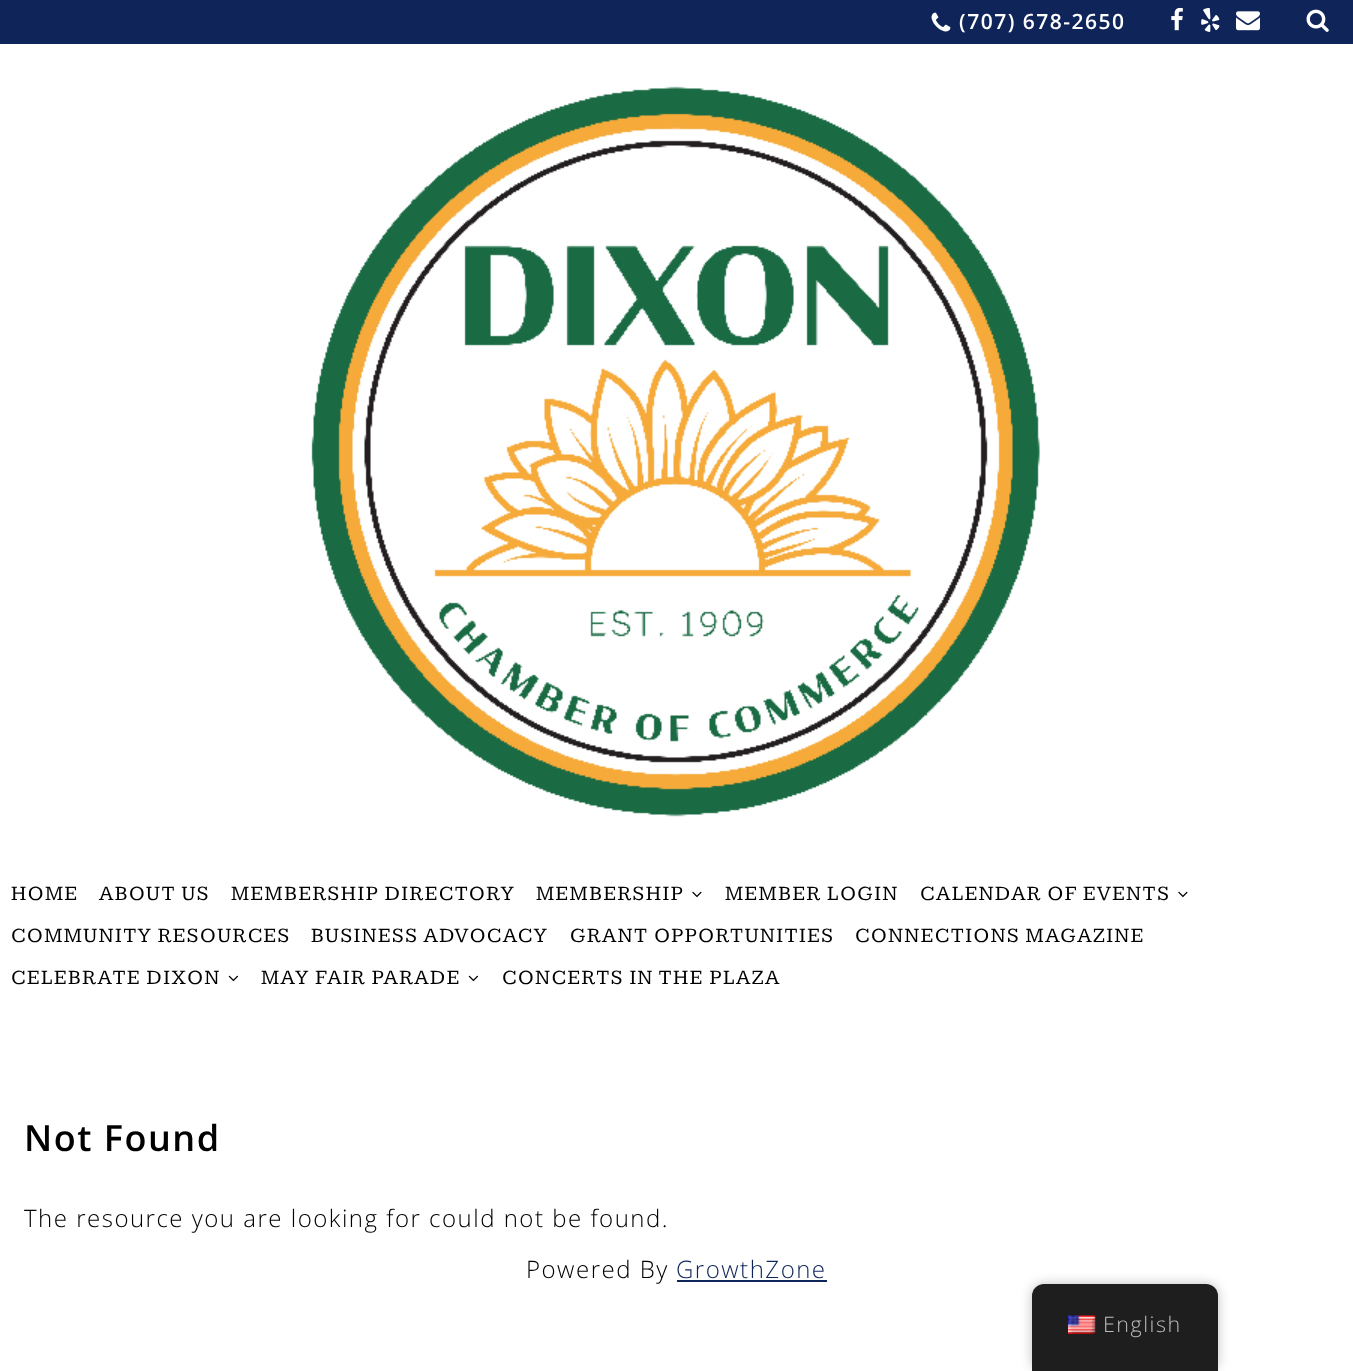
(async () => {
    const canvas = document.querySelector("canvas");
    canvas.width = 1353;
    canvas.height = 1371;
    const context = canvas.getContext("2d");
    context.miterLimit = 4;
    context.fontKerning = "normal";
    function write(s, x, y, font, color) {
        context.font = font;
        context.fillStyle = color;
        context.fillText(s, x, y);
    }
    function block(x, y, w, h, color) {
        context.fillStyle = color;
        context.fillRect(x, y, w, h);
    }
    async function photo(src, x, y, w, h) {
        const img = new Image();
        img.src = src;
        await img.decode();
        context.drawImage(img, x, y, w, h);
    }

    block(0, 0, 1353, 1371, "rgb(255, 255, 255)");
    block(0, 0, 1353, 44, "rgb(15, 36, 89)");
    await photo("media/1.png", 931, 12, 20, 20);
    context.letterSpacing = "1.5px";
    write("(707) 678-2650", 959, 29, "600 21px Open Sans", "rgb(255, 255, 255)");
    await photo("media/2.png", 1171, 7, 12, 24);
    await photo("media/3.png", 1201, 8, 19, 24);
    await photo("media/4.png", 1236, 11, 24, 20);
    await photo("media/5.png", 1306, 9, 23, 23);
    await photo("media/6.png", 311, 86, 729, 731);
    write("HOME", 11, 900, "21px Kameron", "rgb(0, 0, 0)");
    write("ABOUT US", 99, 900, "21px Kameron", "rgb(0, 0, 0)");
    write("MEMBERSHIP DIRECTORY", 231, 900, "21px Kameron", "rgb(0, 0, 0)");
    write("MEMBERSHIP", 536, 900, "21px Kameron", "rgb(0, 0, 0)");
    await photo("media/7.png", 692, 891, 10, 7);
    write("MEMBER LOGIN", 725, 900, "21px Kameron", "rgb(0, 0, 0)");
    write("CALENDAR OF EVENTS", 920, 900, "21px Kameron", "rgb(0, 0, 0)");
    await photo("media/7.png", 1178, 891, 10, 7);
    write("COMMUNITY RESOURCES", 11, 942, "21px Kameron", "rgb(0, 0, 0)");
    write("BUSINESS ADVOCACY", 311, 942, "21px Kameron", "rgb(0, 0, 0)");
    write("GRANT OPPORTUNITIES", 570, 942, "21px Kameron", "rgb(0, 0, 0)");
    write("CONNECTIONS MAGAZINE", 855, 942, "21px Kameron", "rgb(0, 0, 0)");
    write("CELEBRATE DIXON", 11, 984, "21px Kameron", "rgb(0, 0, 0)");
    await photo("media/8.png", 228, 975, 10, 7);
    write("MAY FAIR PARADE", 261, 984, "21px Kameron", "rgb(0, 0, 0)");
    await photo("media/8.png", 468, 975, 10, 7);
    write("CONCERTS IN THE PLAZA", 502, 984, "21px Kameron", "rgb(0, 0, 0)");
    write("Not Found", 24, 1151, "600 36px Open Sans", "rgb(0, 0, 0)");
    write("The resource you are looking for could not be found.", 24, 1227, "300 24px Open Sans", "rgb(0, 0, 0)");
    write("Powered By", 526, 1278, "300 24px Open Sans", "rgb(0, 0, 0)");
    write("GrowthZone", 676, 1278, "300 24px Open Sans", "rgb(15, 36, 89)");
    block(677, 1280, 150, 2, "rgb(15, 36, 89)");
    context.fillStyle = "rgba(0, 0, 0, 0.25)";
    context.filter = "blur(6px)";
    context.beginPath();
    context.roundRect(1032, 1284, 186, 87, 12);
    context.fill();
    context.filter = "none";
    context.fillStyle = "rgb(30, 30, 30)";
    context.beginPath();
    context.roundRect(1032, 1284, 186, 87, [12, 12, 0, 0]);
    context.fill();
    await photo("media/9.png", 1068, 1315, 28, 19);
    write("English", 1103, 1332, "300 21.5px Open Sans", "rgb(189, 189, 189)");
})();
